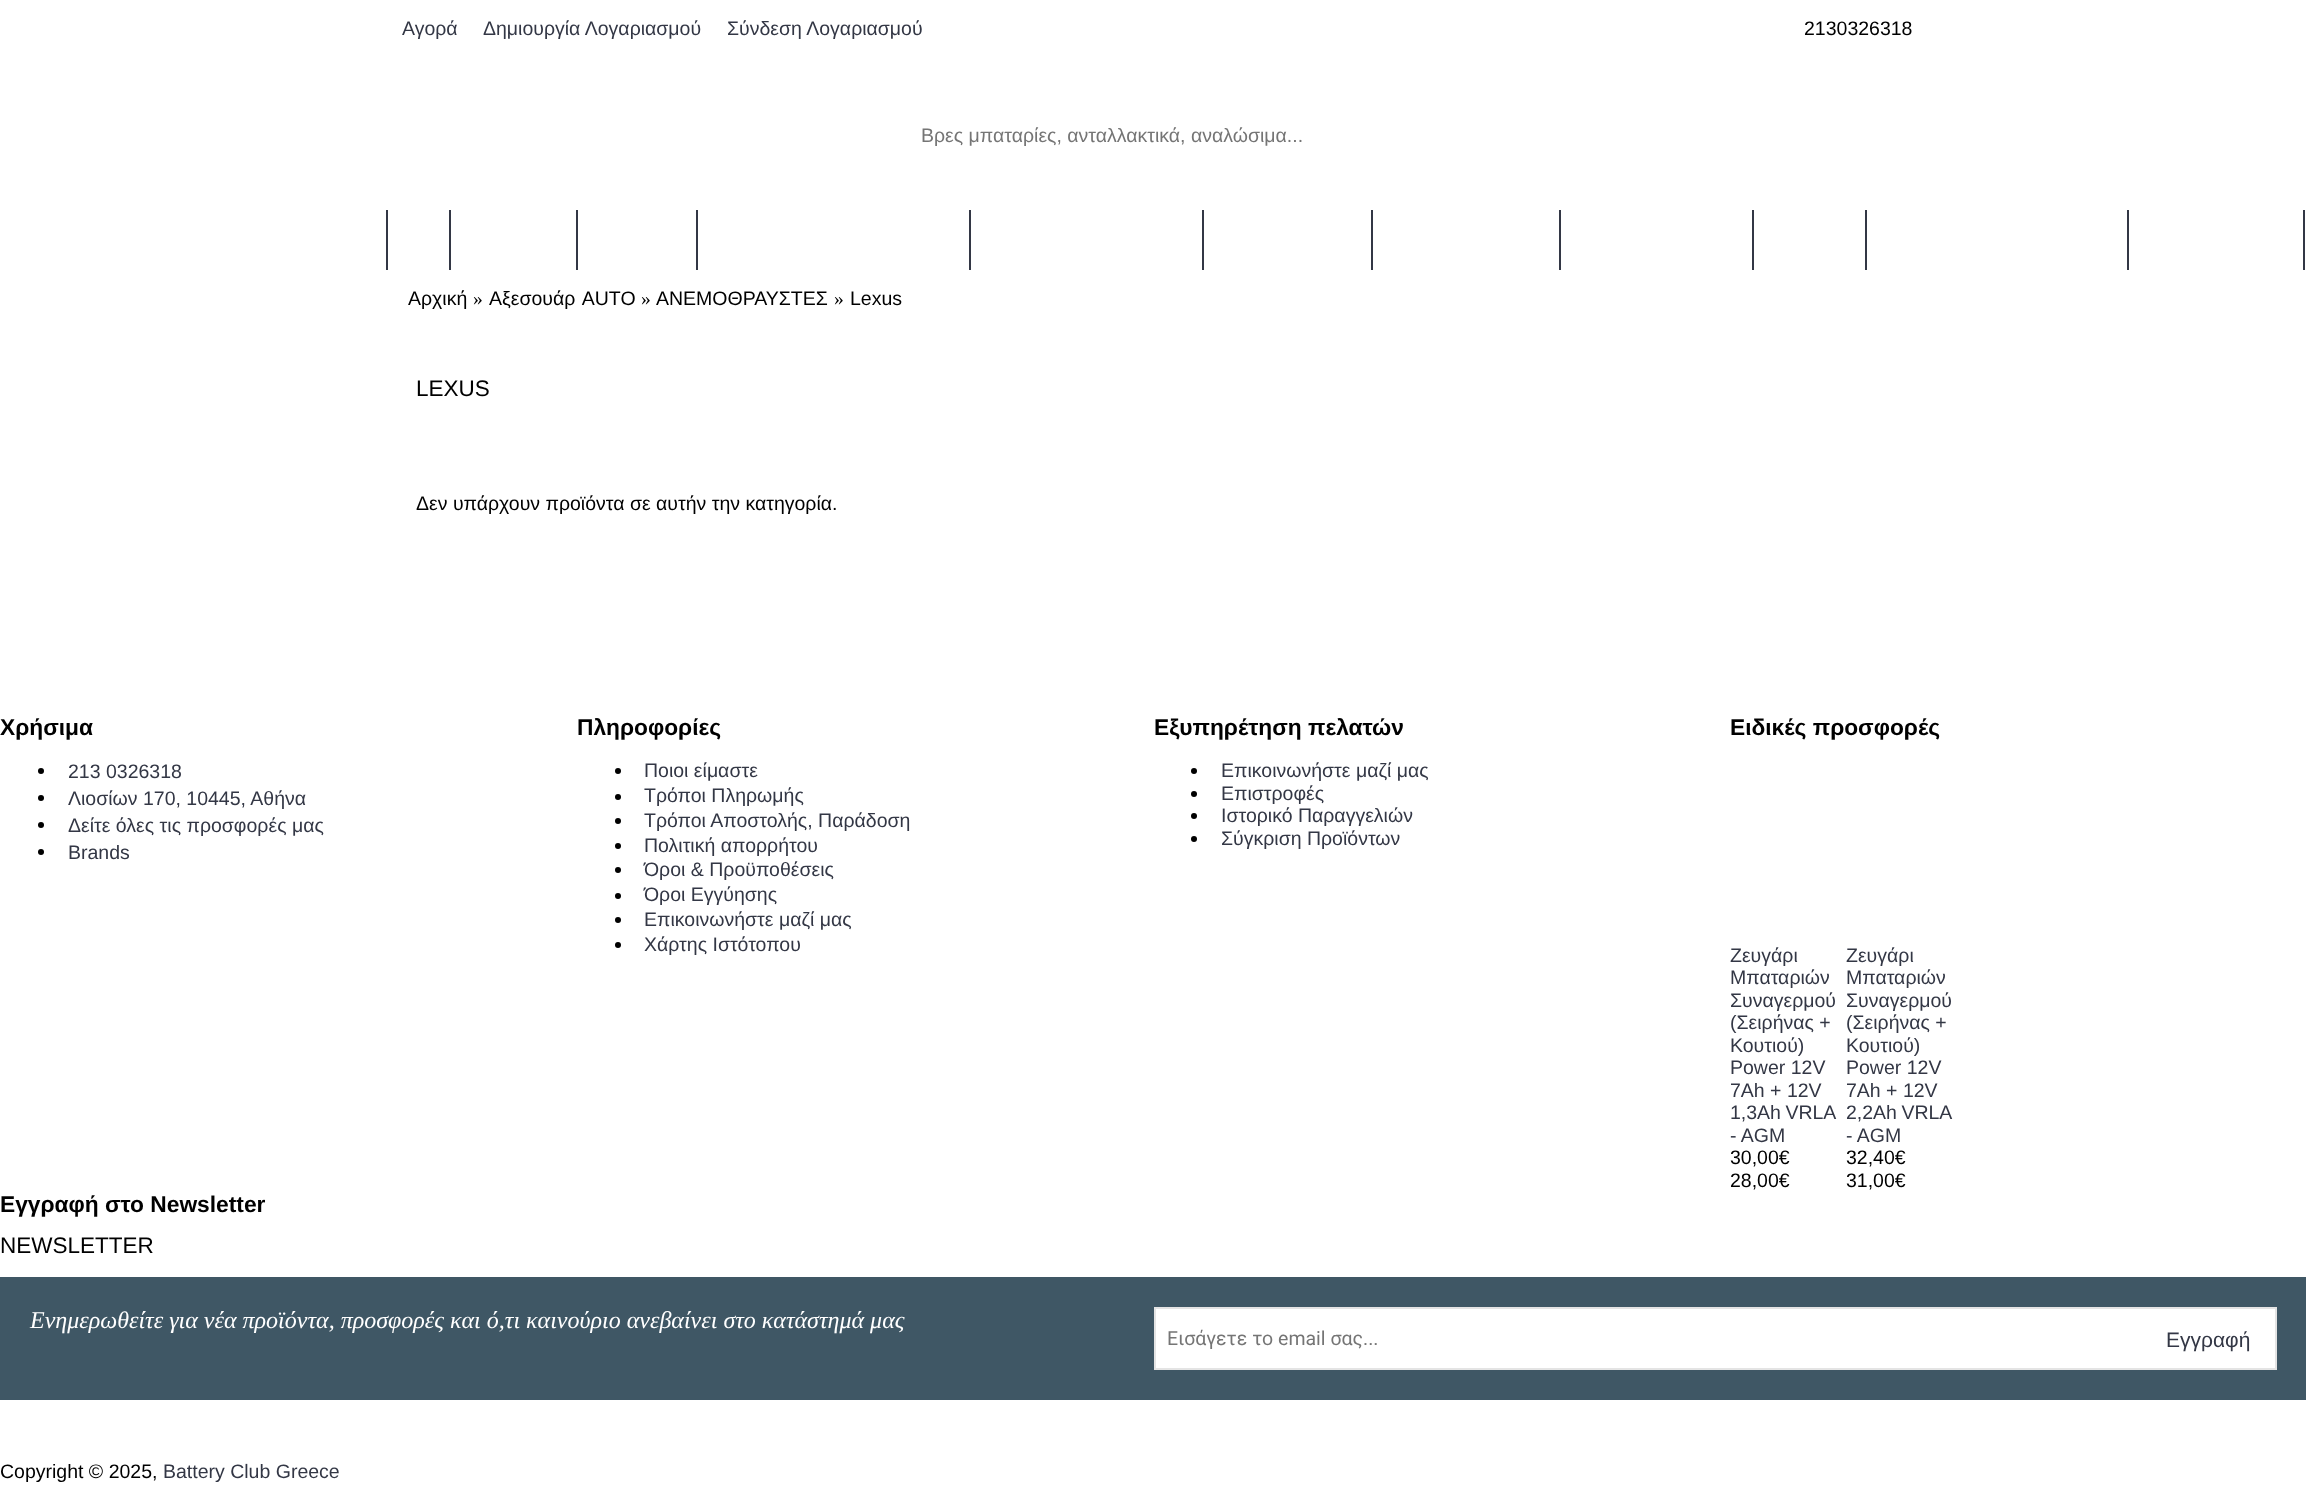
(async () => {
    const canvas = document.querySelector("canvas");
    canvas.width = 2306;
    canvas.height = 1496;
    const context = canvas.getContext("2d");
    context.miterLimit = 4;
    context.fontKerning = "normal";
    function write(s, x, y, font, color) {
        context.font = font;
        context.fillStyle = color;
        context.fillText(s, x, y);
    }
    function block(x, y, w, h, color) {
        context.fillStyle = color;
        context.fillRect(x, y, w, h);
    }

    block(0, 0, 2306, 1496, "rgb(255, 255, 255)");
    write("Αγορά", 402, 35, "19.5px Liberation Sans", "rgb(51, 55, 69)");
    write("Δημιουργία Λογαριασμού", 483, 35, "19.5px Liberation Sans", "rgb(51, 55, 69)");
    write("Σύνδεση Λογαριασμού", 727, 35, "19.5px Liberation Sans", "rgb(51, 55, 69)");
    write("2130326318", 1804, 35, "19.5px Liberation Sans", "rgb(0, 0, 0)");
    write("Βρες μπαταρίες, ανταλλακτικά, αναλώσιμα...", 921, 142, "19.5px Liberation Sans", "rgb(117, 117, 117)");
    block(386, 210, 2, 60, "rgb(51, 55, 69)");
    block(449, 210, 2, 60, "rgb(51, 55, 69)");
    block(576, 210, 2, 60, "rgb(51, 55, 69)");
    block(696, 210, 2, 60, "rgb(51, 55, 69)");
    block(969, 210, 2, 60, "rgb(51, 55, 69)");
    block(1202, 210, 2, 60, "rgb(51, 55, 69)");
    block(1371, 210, 2, 60, "rgb(51, 55, 69)");
    block(1559, 210, 2, 60, "rgb(51, 55, 69)");
    block(1752, 210, 2, 60, "rgb(51, 55, 69)");
    block(1865, 210, 2, 60, "rgb(51, 55, 69)");
    block(2127, 210, 2, 60, "rgb(51, 55, 69)");
    block(2303, 210, 2, 60, "rgb(51, 55, 69)");
    write("Αρχική", 408, 305, "19.5px Liberation Sans", "rgb(0, 0, 0)");
    write("»", 473, 305, "19.5px Liberation Serif", "rgb(0, 0, 0)");
    context.wordSpacing = "1px";
    write("Αξεσουάρ AUTO", 489, 305, "19.5px Liberation Sans", "rgb(0, 0, 0)");
    context.wordSpacing = "0px";
    write("»", 641, 305, "19.5px Liberation Serif", "rgb(0, 0, 0)");
    write("ΑΝΕΜΟΘΡΑΥΣΤΕΣ", 656, 305, "19.5px Liberation Sans", "rgb(0, 0, 0)");
    write("»", 834, 305, "19.5px Liberation Serif", "rgb(0, 0, 0)");
    write("Lexus", 850, 305, "19.5px Liberation Sans", "rgb(0, 0, 0)");
    write("LEXUS", 416, 396, "22.5px Liberation Sans", "rgb(0, 0, 0)");
    write("Δεν υπάρχουν προϊόντα σε αυτήν την κατηγορία.", 416, 510, "19.5px Liberation Sans", "rgb(0, 0, 0)");
    write("Χρήσιμα", 0, 735, "bold 22.75px Liberation Sans", "rgb(0, 0, 0)");
    context.beginPath();
    context.arc(41, 771, 3, 0, Math.PI * 2);
    context.fill();
    write("213 0326318", 68, 778, "19.5px Liberation Sans", "rgb(51, 55, 69)");
    context.fillStyle = "rgb(0, 0, 0)";
    context.beginPath();
    context.arc(41, 798, 3, 0, Math.PI * 2);
    context.fill();
    write("Λιοσίων 170, 10445, Αθήνα", 68, 805, "19.5px Liberation Sans", "rgb(51, 55, 69)");
    context.fillStyle = "rgb(0, 0, 0)";
    context.beginPath();
    context.arc(41, 825, 3, 0, Math.PI * 2);
    context.fill();
    write("Δείτε όλες τις προσφορές μας", 68, 832, "19.5px Liberation Sans", "rgb(51, 55, 69)");
    context.fillStyle = "rgb(0, 0, 0)";
    context.beginPath();
    context.arc(41, 852, 3, 0, Math.PI * 2);
    context.fill();
    write("Brands", 68, 859, "19.5px Liberation Sans", "rgb(51, 55, 69)");
    write("Πληροφορίες", 577, 735, "bold 22.75px Liberation Sans", "rgb(0, 0, 0)");
    context.beginPath();
    context.arc(618, 771, 3, 0, Math.PI * 2);
    context.fill();
    write("Ποιοι είμαστε", 644, 777, "19.5px Liberation Sans", "rgb(51, 55, 69)");
    context.fillStyle = "rgb(0, 0, 0)";
    context.beginPath();
    context.arc(618, 797, 3, 0, Math.PI * 2);
    context.fill();
    write("Τρόποι Πληρωμής", 644, 802, "19.5px Liberation Sans", "rgb(51, 55, 69)");
    context.fillStyle = "rgb(0, 0, 0)";
    context.beginPath();
    context.arc(618, 821, 3, 0, Math.PI * 2);
    context.fill();
    write("Τρόποι Αποστολής, Παράδοση", 644, 827, "19.5px Liberation Sans", "rgb(51, 55, 69)");
    context.fillStyle = "rgb(0, 0, 0)";
    context.beginPath();
    context.arc(618, 846, 3, 0, Math.PI * 2);
    context.fill();
    write("Πολιτική απορρήτου", 644, 852, "19.5px Liberation Sans", "rgb(51, 55, 69)");
    context.fillStyle = "rgb(0, 0, 0)";
    context.beginPath();
    context.arc(618, 870, 3, 0, Math.PI * 2);
    context.fill();
    write("Όροι & Προϋποθέσεις", 644, 876, "19.5px Liberation Sans", "rgb(51, 55, 69)");
    context.fillStyle = "rgb(0, 0, 0)";
    context.beginPath();
    context.arc(618, 896, 3, 0, Math.PI * 2);
    context.fill();
    write("Όροι Εγγύησης", 644, 901, "19.5px Liberation Sans", "rgb(51, 55, 69)");
    context.fillStyle = "rgb(0, 0, 0)";
    context.beginPath();
    context.arc(618, 920, 3, 0, Math.PI * 2);
    context.fill();
    write("Επικοινωνήστε μαζί μας", 644, 926, "19.5px Liberation Sans", "rgb(51, 55, 69)");
    context.fillStyle = "rgb(0, 0, 0)";
    context.beginPath();
    context.arc(618, 945, 3, 0, Math.PI * 2);
    context.fill();
    write("Χάρτης Ιστότοπου", 644, 951, "19.5px Liberation Sans", "rgb(51, 55, 69)");
    write("Εξυπηρέτηση πελατών", 1154, 735, "bold 22.75px Liberation Sans", "rgb(0, 0, 0)");
    context.beginPath();
    context.arc(1194, 771, 3, 0, Math.PI * 2);
    context.fill();
    write("Επικοινωνήστε μαζί μας", 1221, 777, "19.5px Liberation Sans", "rgb(51, 55, 69)");
    context.fillStyle = "rgb(0, 0, 0)";
    context.beginPath();
    context.arc(1194, 794, 3, 0, Math.PI * 2);
    context.fill();
    write("Επιστροφές", 1221, 800, "19.5px Liberation Sans", "rgb(51, 55, 69)");
    context.fillStyle = "rgb(0, 0, 0)";
    context.beginPath();
    context.arc(1194, 816, 3, 0, Math.PI * 2);
    context.fill();
    write("Ιστορικό Παραγγελιών", 1221, 822, "19.5px Liberation Sans", "rgb(51, 55, 69)");
    context.fillStyle = "rgb(0, 0, 0)";
    context.beginPath();
    context.arc(1194, 839, 3, 0, Math.PI * 2);
    context.fill();
    write("Σύγκριση Προϊόντων", 1221, 845, "19.5px Liberation Sans", "rgb(51, 55, 69)");
    write("Ειδικές προσφορές", 1730, 735, "bold 22.75px Liberation Sans", "rgb(0, 0, 0)");
    write("Ζευγάρι", 1730, 962, "19.5px Liberation Sans", "rgb(51, 55, 69)");
    write("Μπαταριών", 1730, 984, "19.5px Liberation Sans", "rgb(51, 55, 69)");
    write("Συναγερμού", 1730, 1007, "19.5px Liberation Sans", "rgb(51, 55, 69)");
    write("(Σειρήνας +", 1730, 1029, "19.5px Liberation Sans", "rgb(51, 55, 69)");
    write("Κουτιού)", 1730, 1052, "19.5px Liberation Sans", "rgb(51, 55, 69)");
    write("Power 12V", 1730, 1074, "19.5px Liberation Sans", "rgb(51, 55, 69)");
    write("7Ah + 12V", 1730, 1097, "19.5px Liberation Sans", "rgb(51, 55, 69)");
    context.wordSpacing = "-1px";
    write("1,3Ah VRLA", 1730, 1119, "19.5px Liberation Sans", "rgb(51, 55, 69)");
    context.wordSpacing = "0px";
    write("- AGM", 1730, 1142, "19.5px Liberation Sans", "rgb(51, 55, 69)");
    write("30,00€", 1730, 1164, "19.5px Liberation Sans", "rgb(0, 0, 0)");
    write("28,00€", 1730, 1187, "19.5px Liberation Sans", "rgb(0, 0, 0)");
    write("Ζευγάρι", 1846, 962, "19.5px Liberation Sans", "rgb(51, 55, 69)");
    write("Μπαταριών", 1846, 984, "19.5px Liberation Sans", "rgb(51, 55, 69)");
    write("Συναγερμού", 1846, 1007, "19.5px Liberation Sans", "rgb(51, 55, 69)");
    write("(Σειρήνας +", 1846, 1029, "19.5px Liberation Sans", "rgb(51, 55, 69)");
    write("Κουτιού)", 1846, 1052, "19.5px Liberation Sans", "rgb(51, 55, 69)");
    write("Power 12V", 1846, 1074, "19.5px Liberation Sans", "rgb(51, 55, 69)");
    write("7Ah + 12V", 1846, 1097, "19.5px Liberation Sans", "rgb(51, 55, 69)");
    context.wordSpacing = "-1px";
    write("2,2Ah VRLA", 1846, 1119, "19.5px Liberation Sans", "rgb(51, 55, 69)");
    context.wordSpacing = "0px";
    write("- AGM", 1846, 1142, "19.5px Liberation Sans", "rgb(51, 55, 69)");
    write("32,40€", 1846, 1164, "19.5px Liberation Sans", "rgb(0, 0, 0)");
    write("31,00€", 1846, 1187, "19.5px Liberation Sans", "rgb(0, 0, 0)");
    write("Εγγραφή στο Newsletter", 0, 1212, "bold 22.75px Liberation Sans", "rgb(0, 0, 0)");
    write("NEWSLETTER", 0, 1253, "22.5px Liberation Sans", "rgb(0, 0, 0)");
    block(0, 1277, 2306, 123, "rgb(63, 87, 101)");
    write("Ενημερωθείτε για νέα προϊόντα, προσφορές και ό,τι καινούριο ανεβαίνει στο κατάστημά μας", 30, 1328, "italic 24px Liberation Serif", "rgb(255, 255, 255)");
    context.beginPath();
    context.rect(1155, 1308, 1121, 61);
    context.fill();
    context.strokeStyle = "rgb(228, 228, 228)";
    context.lineWidth = 2;
    context.stroke();
    write("Εισάγετε το email σας...", 1167, 1345, "19.5px Roboto", "rgb(117, 117, 117)");
    write("Εγγραφή", 2166, 1347, "21px Liberation Sans", "rgb(51, 55, 69)");
    write("Copyright © 2025,", 0, 1478, "19.5px Liberation Sans", "rgb(0, 0, 0)");
    write("Battery Club Greece", 163, 1478, "19.5px Liberation Sans", "rgb(51, 55, 69)");
})();
